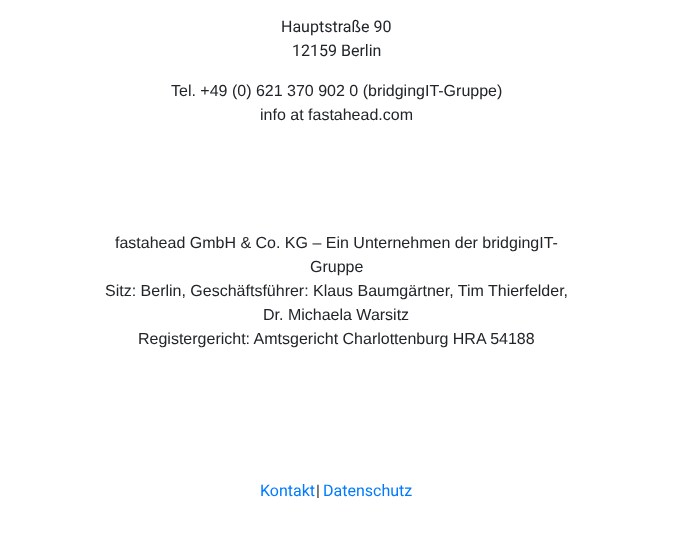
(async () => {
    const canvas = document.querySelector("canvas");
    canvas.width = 673;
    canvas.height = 551;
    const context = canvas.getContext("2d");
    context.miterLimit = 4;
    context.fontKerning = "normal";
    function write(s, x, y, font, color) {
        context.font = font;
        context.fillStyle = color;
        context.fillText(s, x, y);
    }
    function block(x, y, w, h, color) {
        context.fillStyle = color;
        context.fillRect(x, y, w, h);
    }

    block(0, 0, 673, 551, "rgb(255, 255, 255)");
    write("Hauptstraße 90", 281, 32, "16px Roboto", "rgb(33, 37, 41)");
    write("12159 Berlin", 292, 56, "16px Roboto", "rgb(33, 37, 41)");
    write("Tel. +49 (0) 621 370 902 0 (bridgingIT-Gruppe)", 171, 96, "16px Liberation Sans", "rgb(33, 37, 41)");
    write("info at fastahead.com", 260, 120, "16px Liberation Sans", "rgb(33, 37, 41)");
    write("fastahead GmbH & Co. KG – Ein Unternehmen der bridgingIT-", 115, 248, "16px Liberation Sans", "rgb(33, 37, 41)");
    write("Gruppe", 310, 272, "16px Liberation Sans", "rgb(33, 37, 41)");
    write("Sitz: Berlin, Geschäftsführer: Klaus Baumgärtner, Tim Thierfelder,", 105, 296, "16px Liberation Sans", "rgb(33, 37, 41)");
    write("Dr. Michaela Warsitz", 263, 320, "16px Liberation Sans", "rgb(33, 37, 41)");
    write("Registergericht: Amtsgericht Charlottenburg HRA 54188", 138, 344, "16px Liberation Sans", "rgb(33, 37, 41)");
    write("Kontakt", 260, 496, "16px Roboto", "rgb(0, 123, 255)");
    write("|", 316, 496, "16px Roboto", "rgb(33, 37, 41)");
    write("Datenschutz", 323, 496, "16px Roboto", "rgb(0, 123, 255)");
})();
